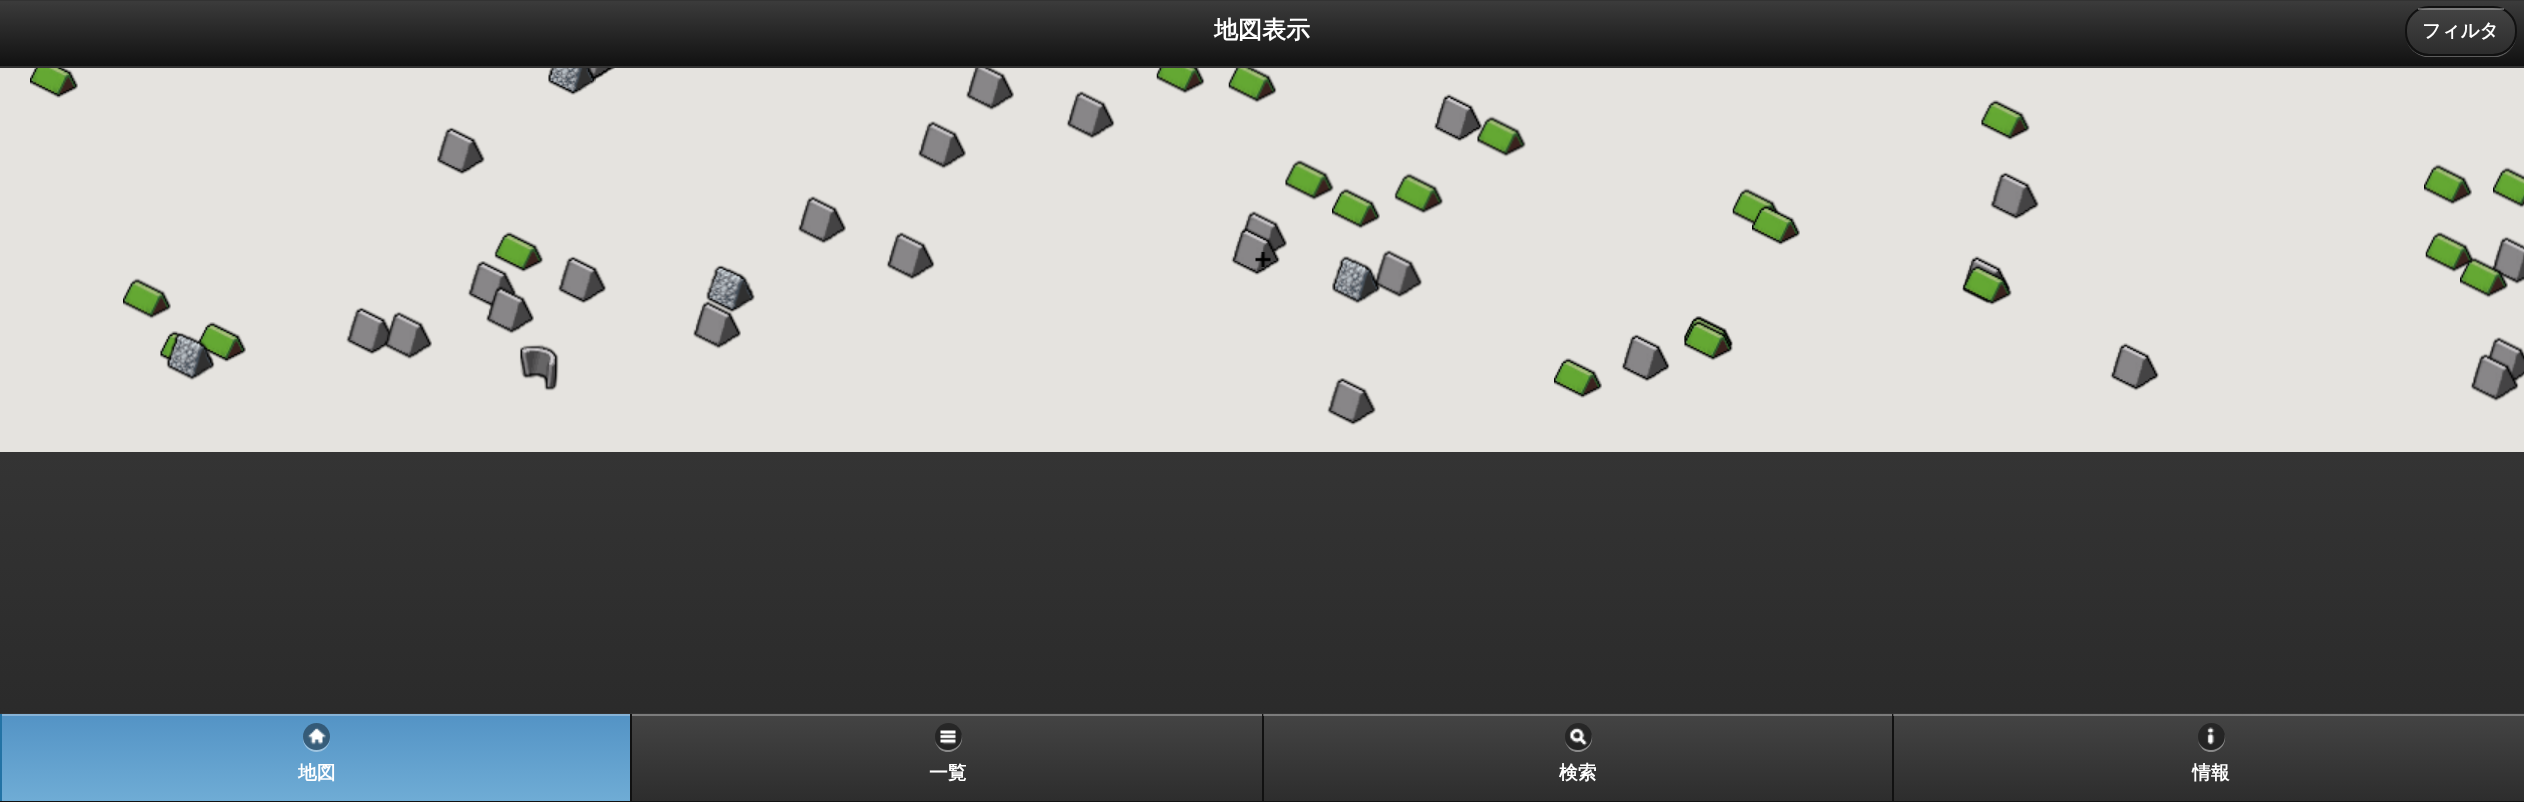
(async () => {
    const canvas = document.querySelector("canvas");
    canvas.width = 2524;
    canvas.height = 802;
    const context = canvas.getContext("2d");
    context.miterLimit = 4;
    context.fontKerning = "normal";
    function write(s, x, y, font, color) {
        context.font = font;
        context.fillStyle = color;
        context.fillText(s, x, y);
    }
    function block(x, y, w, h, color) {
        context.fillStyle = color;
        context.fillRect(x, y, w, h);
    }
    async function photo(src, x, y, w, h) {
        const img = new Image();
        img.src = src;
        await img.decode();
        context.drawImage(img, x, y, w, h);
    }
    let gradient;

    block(0, 0, 2524, 802, "rgb(255, 255, 255)");
    gradient = context.createLinearGradient(1262, 0, 1262, 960);
    gradient.addColorStop(0, "rgb(68, 68, 68)");
    gradient.addColorStop(1, "rgb(34, 34, 34)");
    context.fillStyle = gradient;
    context.fillRect(0, 452, 2524, 261);
    gradient = context.createLinearGradient(1262, 0, 1262, 66);
    gradient.addColorStop(0, "rgb(60, 60, 60)");
    gradient.addColorStop(1, "rgb(17, 17, 17)");
    context.fillStyle = gradient;
    context.fillRect(0, 1, 2524, 65);
    block(0, 0, 2524, 1, "rgb(51, 51, 51)");
    block(0, 66, 2524, 2, "rgb(51, 51, 51)");
    write("地図表示", 1214, 38, "bold 24px WenQuanYi Zen Hei", "rgb(255, 255, 255)");
    context.fillStyle = "rgba(255, 255, 255, 0.3)";
    context.beginPath();
    context.moveTo(2406, 40);
    context.bezierCurveTo(2409, 49, 2416, 55, 2425, 57);
    context.lineTo(2482, 57);
    context.lineTo(2498, 57);
    context.bezierCurveTo(2510, 54, 2517, 43, 2517, 32);
    context.bezierCurveTo(2517, 45, 2506, 56, 2493, 56);
    context.lineTo(2428, 56);
    context.bezierCurveTo(2418, 56, 2409, 49, 2406, 40);
    context.closePath();
    context.fill();
    gradient = context.createLinearGradient(2461, 7.5, 2461, 54);
    gradient.addColorStop(0, "rgb(68, 68, 68)");
    gradient.addColorStop(1, "rgb(45, 45, 45)");
    context.fillStyle = gradient;
    context.beginPath();
    context.roundRect(2406, 8, 110, 46, 23);
    context.fill();
    context.beginPath();
    context.roundRect(2406, 7, 110, 48, 23);
    context.strokeStyle = "rgb(17, 17, 17)";
    context.lineWidth = 2;
    context.stroke();
    block(2418, 8, 86, 2, "rgba(255, 255, 255, 0.3)");
    write("フィルタ", 2422, 37, "bold 18.75px WenQuanYi Zen Hei", "rgb(255, 255, 255)");
    block(0, 68, 2524, 384, "rgb(229, 227, 223)");
    await photo("media/1.png", 30, 68, 48, 30);
    await photo("media/4.png", 592, 68, 23, 12);
    await photo("media/3.png", 587, 68, 28, 12);
    await photo("media/2.png", 548, 68, 48, 27);
    await photo("media/5.png", 966, 68, 48, 43);
    await photo("media/6.png", 1156, 68, 49, 26);
    await photo("media/7.png", 1228, 68, 49, 35);
    await photo("media/8.png", 437, 127, 48, 48);
    await photo("media/9.png", 918, 121, 48, 48);
    await photo("media/10.png", 1066, 91, 49, 48);
    await photo("media/11.png", 1434, 94, 48, 48);
    await photo("media/12.png", 1477, 116, 49, 41);
    await photo("media/13.png", 1981, 100, 49, 40);
    await photo("media/9.png", 798, 196, 48, 48);
    await photo("media/14.png", 1285, 160, 49, 41);
    await photo("media/15.png", 1332, 188, 48, 41);
    await photo("media/16.png", 1394, 173, 50, 41);
    await photo("media/17.png", 1732, 188, 49, 38);
    await photo("media/18.png", 1990, 172, 49, 48);
    await photo("media/19.png", 2424, 164, 48, 41);
    await photo("media/20.png", 2493, 167, 31, 41);
    await photo("media/21.png", 1239, 211, 48, 43);
    await photo("media/22.png", 1752, 205, 48, 40);
    await photo("media/23.png", 494, 232, 50, 40);
    await photo("media/10.png", 886, 232, 49, 48);
    await photo("media/24.png", 1231, 228, 49, 47);
    await photo("media/25.png", 1374, 250, 49, 48);
    await photo("media/26.png", 2425, 232, 49, 41);
    await photo("media/27.png", 2491, 236, 33, 49);
    await photo("media/28.png", 467, 261, 50, 47);
    await photo("media/29.png", 557, 256, 50, 48);
    await photo("media/30.png", 706, 265, 49, 48);
    await photo("media/31.png", 1255, 252, 16, 15);
    await photo("media/32.png", 1332, 256, 48, 48);
    await photo("media/11.png", 1962, 256, 48, 48);
    await photo("media/33.png", 2460, 257, 48, 41);
    await photo("media/19.png", 123, 278, 48, 41);
    await photo("media/34.png", 346, 307, 46, 48);
    await photo("media/35.png", 384, 311, 48, 49);
    await photo("media/36.png", 486, 286, 48, 48);
    await photo("media/37.png", 693, 301, 48, 48);
    await photo("media/38.png", 1684, 316, 49, 32);
    await photo("media/39.png", 1963, 265, 49, 40);
    await photo("media/40.png", 1684, 316, 49, 32);
    await photo("media/42.png", 198, 322, 48, 40);
    await photo("media/41.png", 160, 331, 49, 31);
    await photo("media/43.png", 1684, 320, 49, 41);
    await photo("media/44.png", 166, 332, 49, 49);
    await photo("media/45.png", 519, 344, 40, 47);
    await photo("media/46.png", 1621, 334, 49, 48);
    await photo("media/47.png", 2110, 343, 49, 48);
    await photo("media/48.png", 2487, 337, 37, 45);
    await photo("media/49.png", 1327, 378, 49, 47);
    await photo("media/42.png", 1554, 358, 48, 40);
    await photo("media/50.png", 2470, 353, 49, 49);
    gradient = context.createLinearGradient(1262, 714, 1262, 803);
    gradient.addColorStop(0, "rgb(60, 60, 60)");
    gradient.addColorStop(1, "rgb(17, 17, 17)");
    context.fillStyle = gradient;
    context.fillRect(0, 801, 2524, 1);
    block(0, 713, 2524, 1, "rgb(51, 51, 51)");
    gradient = context.createLinearGradient(317, 714, 317, 801);
    gradient.addColorStop(0, "rgb(83, 147, 197)");
    gradient.addColorStop(1, "rgb(111, 172, 213)");
    context.fillStyle = gradient;
    context.fillRect(2, 716, 628, 85);
    block(0, 714, 2, 87, "rgb(35, 115, 165)");
    block(2, 714, 631, 2, "rgb(135, 179, 214)");
    context.fillStyle = "rgba(255, 255, 255, 0.4)";
    context.beginPath();
    context.moveTo(303, 737.5);
    context.bezierCurveTo(302, 751, 320, 757.5, 327.5, 746);
    context.bezierCurveTo(329.5, 743.5, 330, 740.5, 330, 737.5);
    context.bezierCurveTo(329, 754, 304, 754, 303, 737.5);
    context.closePath();
    context.fill();
    context.fillStyle = "rgba(0, 0, 0, 0.4)";
    context.beginPath();
    context.arc(316.5, 736.5, 13.5, 0, Math.PI * 2);
    context.fill();
    await photo("media/51.png", 307, 727, 19, 18);
    write("地図", 298, 779, "bold 18.75px WenQuanYi Zen Hei", "rgb(255, 255, 255)");
    gradient = context.createLinearGradient(947, 714, 947, 801);
    gradient.addColorStop(0, "rgb(68, 68, 68)");
    gradient.addColorStop(1, "rgb(45, 45, 45)");
    context.fillStyle = gradient;
    context.fillRect(632, 716, 630, 85);
    block(630, 714, 2, 87, "rgb(17, 17, 17)");
    block(632, 714, 631, 2, "rgb(124, 124, 124)");
    context.fillStyle = "rgba(255, 255, 255, 0.4)";
    context.beginPath();
    context.moveTo(935, 741);
    context.bezierCurveTo(935.5, 744, 937.5, 746.5, 939.5, 749);
    context.bezierCurveTo(950, 757.5, 965.5, 747, 961.5, 734);
    context.bezierCurveTo(964, 750.5, 940.5, 756.5, 935, 741);
    context.closePath();
    context.fill();
    context.fillStyle = "rgba(0, 0, 0, 0.4)";
    context.beginPath();
    context.arc(948.5, 736.5, 13.5, 0, Math.PI * 2);
    context.fill();
    await photo("media/52.png", 940, 730, 16, 15);
    write("一覧", 929, 779, "bold 18.75px WenQuanYi Zen Hei", "rgb(255, 255, 255)");
    gradient = context.createLinearGradient(1578, 714, 1578, 801);
    gradient.addColorStop(0, "rgb(68, 68, 68)");
    gradient.addColorStop(1, "rgb(45, 45, 45)");
    context.fillStyle = gradient;
    context.fillRect(1264, 716, 628, 85);
    gradient = context.createLinearGradient(1578, 714, 1578, 801);
    gradient.addColorStop(0, "rgb(124, 124, 124)");
    gradient.addColorStop(1, "rgb(108, 108, 108)");
    context.fillStyle = gradient;
    context.fillRect(1263, 714, 630, 2);
    block(1262, 714, 2, 87, "rgb(17, 17, 17)");
    block(1263, 714, 1, 2, "rgb(88, 88, 88)");
    context.fillStyle = "rgba(255, 255, 255, 0.4)";
    context.beginPath();
    context.moveTo(1565, 741);
    context.bezierCurveTo(1565.5, 744, 1567.5, 746.5, 1569.5, 749);
    context.bezierCurveTo(1580, 757.5, 1595.5, 747, 1591.5, 734);
    context.bezierCurveTo(1594, 750.5, 1570.5, 756.5, 1565, 741);
    context.closePath();
    context.fill();
    context.fillStyle = "rgba(0, 0, 0, 0.4)";
    context.beginPath();
    context.arc(1578.5, 736.5, 13.5, 0, Math.PI * 2);
    context.fill();
    await photo("media/53.png", 1569, 727, 19, 19);
    write("検索", 1559, 779, "bold 18.75px WenQuanYi Zen Hei", "rgb(255, 255, 255)");
    gradient = context.createLinearGradient(2211, 714, 2211, 801);
    gradient.addColorStop(0, "rgb(68, 68, 68)");
    gradient.addColorStop(1, "rgb(45, 45, 45)");
    context.fillStyle = gradient;
    context.fillRect(1894, 716, 630, 85);
    gradient = context.createLinearGradient(2211, 714, 2211, 801);
    gradient.addColorStop(0, "rgb(124, 124, 124)");
    gradient.addColorStop(1, "rgb(108, 108, 108)");
    context.fillStyle = gradient;
    context.fillRect(1893, 714, 631, 2);
    block(1892, 714, 2, 87, "rgb(17, 17, 17)");
    block(1893, 714, 1, 2, "rgb(88, 88, 88)");
    context.fillStyle = "rgba(255, 255, 255, 0.4)";
    context.beginPath();
    context.moveTo(2198, 741);
    context.bezierCurveTo(2198.5, 744, 2200.5, 746.5, 2202.5, 749);
    context.bezierCurveTo(2213, 757.5, 2228.5, 747, 2224.5, 734);
    context.bezierCurveTo(2227, 750.5, 2203.5, 756.5, 2198, 741);
    context.closePath();
    context.fill();
    context.fillStyle = "rgba(0, 0, 0, 0.4)";
    context.beginPath();
    context.arc(2211.5, 736.5, 13.5, 0, Math.PI * 2);
    context.fill();
    await photo("media/54.png", 2207, 727, 8, 18);
    write("情報", 2192, 779, "bold 18.75px WenQuanYi Zen Hei", "rgb(255, 255, 255)");
})();
